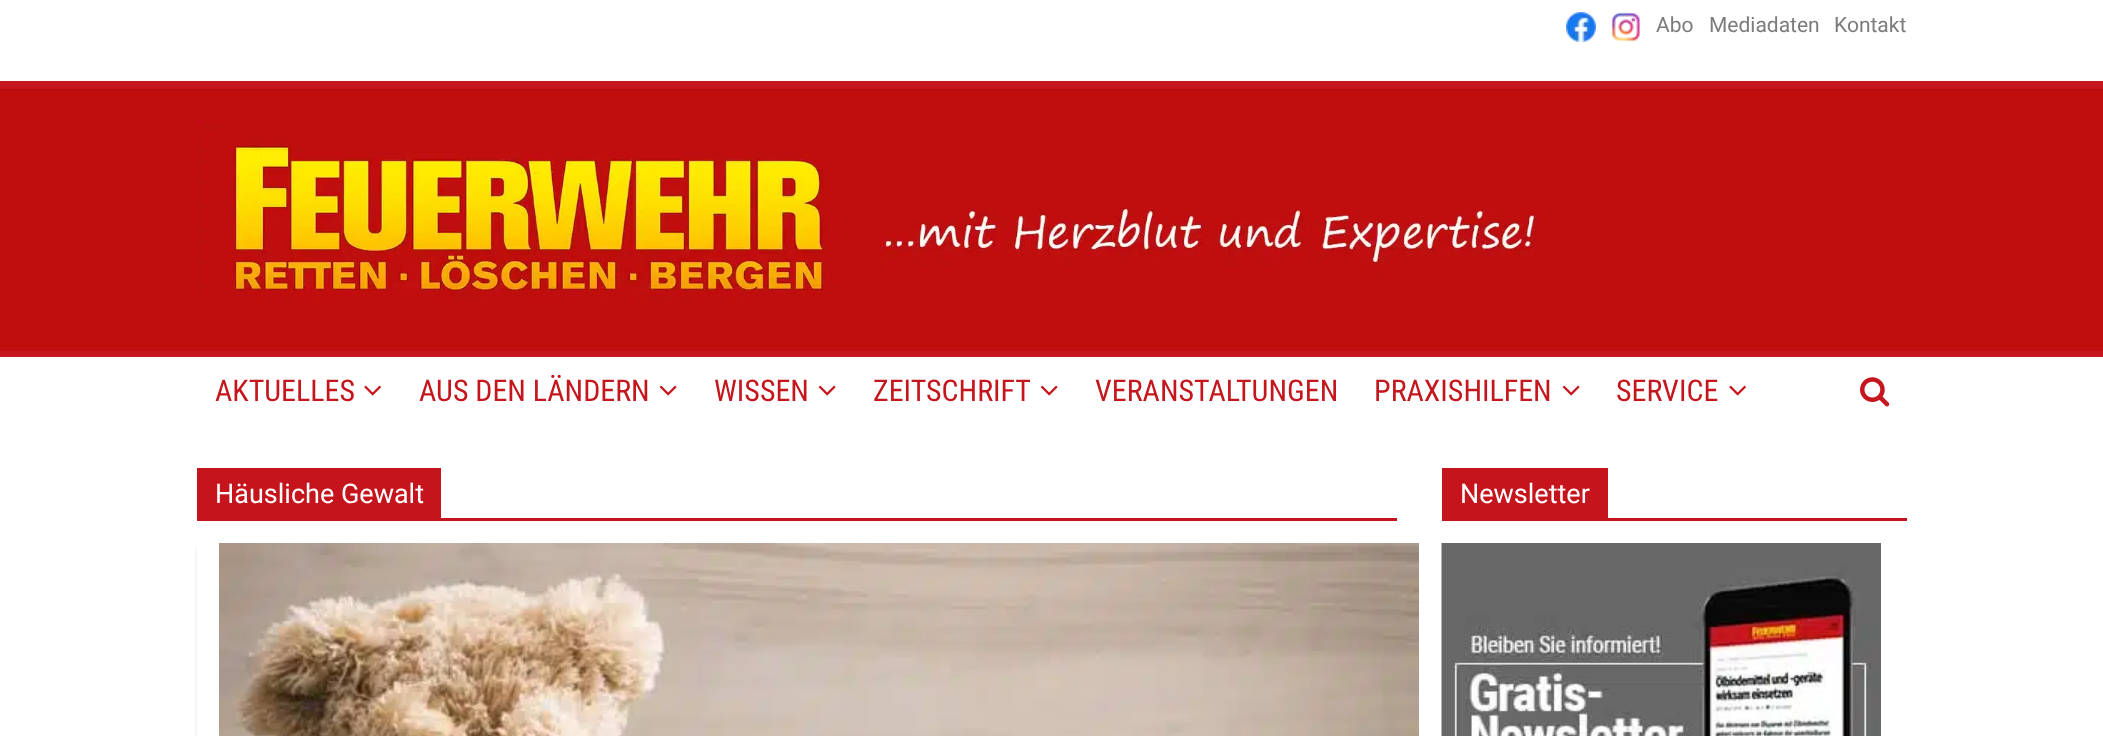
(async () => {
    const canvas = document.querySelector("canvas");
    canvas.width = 2103;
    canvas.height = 736;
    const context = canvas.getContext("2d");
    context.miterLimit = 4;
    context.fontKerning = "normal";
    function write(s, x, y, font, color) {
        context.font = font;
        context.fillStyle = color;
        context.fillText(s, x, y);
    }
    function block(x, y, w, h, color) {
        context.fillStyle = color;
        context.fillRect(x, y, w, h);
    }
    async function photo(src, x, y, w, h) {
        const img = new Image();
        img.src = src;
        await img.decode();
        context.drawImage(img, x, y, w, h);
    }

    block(0, 0, 2103, 736, "rgb(255, 255, 255)");
    block(0, 89, 2103, 262, "rgb(192, 14, 14)");
    context.fillStyle = "rgba(0, 0, 0, 0.1)";
    context.filter = "blur(1.5px)";
    context.beginPath();
    context.rect(0, 0, 2103, 89);
    context.fill();
    context.filter = "none";
    block(0, 0, 2103, 81, "rgb(255, 255, 255)");
    block(0, 81, 2103, 8, "rgb(196, 22, 28)");
    await photo("media/1.png", 1566, 12, 30, 30);
    await photo("media/2.png", 1611, 12, 30, 30);
    write("Abo", 1656, 32, "21px Roboto", "rgb(124, 124, 124)");
    write("Mediadaten", 1709, 32, "21px Roboto", "rgb(124, 124, 124)");
    write("Kontakt", 1834, 32, "21px Roboto", "rgb(124, 124, 124)");
    await photo("media/3.png", 196, 118, 1343, 183);
    block(0, 351, 2103, 6, "rgb(196, 22, 28)");
    write("AKTUELLES", 215, 401, "30px Roboto Condensed", "rgb(196, 22, 28)");
    await photo("media/4.png", 364, 385, 17, 11);
    write("AUS DEN LÄNDERN", 419, 401, "30px Roboto Condensed", "rgb(196, 22, 28)");
    await photo("media/5.png", 659, 385, 18, 11);
    write("WISSEN", 714, 401, "30px Roboto Condensed", "rgb(196, 22, 28)");
    await photo("media/5.png", 818, 385, 18, 11);
    write("ZEITSCHRIFT", 873, 401, "30px Roboto Condensed", "rgb(196, 22, 28)");
    await photo("media/5.png", 1040, 385, 18, 11);
    write("VERANSTALTUNGEN", 1095, 401, "30px Roboto Condensed", "rgb(196, 22, 28)");
    write("PRAXISHILFEN", 1374, 401, "30px Roboto Condensed", "rgb(196, 22, 28)");
    await photo("media/5.png", 1562, 385, 18, 11);
    write("SERVICE", 1616, 401, "30px Roboto Condensed", "rgb(196, 22, 28)");
    await photo("media/4.png", 1729, 385, 17, 11);
    await photo("media/6.png", 1860, 377, 30, 30);
    block(197, 518, 1200, 3, "rgb(198, 20, 28)");
    block(197, 468, 244, 50, "rgb(198, 20, 28)");
    write("Häusliche Gewalt", 215, 503, "27px Roboto", "rgb(255, 255, 255)");
    context.save();
    context.beginPath();
    context.rect(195, 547, 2, 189);
    context.clip();
    context.fillStyle = "rgba(0, 0, 0, 0.1)";
    context.filter = "blur(2px)";
    context.beginPath();
    context.rect(197, 545, 1200, 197);
    context.fill();
    context.filter = "none";
    context.restore();
    await photo("media/7.png", 219, 543, 1200, 193);
    block(1442, 518, 465, 3, "rgb(198, 20, 28)");
    block(1442, 468, 166, 50, "rgb(198, 20, 28)");
    write("Newsletter", 1460, 503, "27px Roboto", "rgb(255, 255, 255)");
    await photo("media/8.png", 1441, 543, 440, 193);
})();
